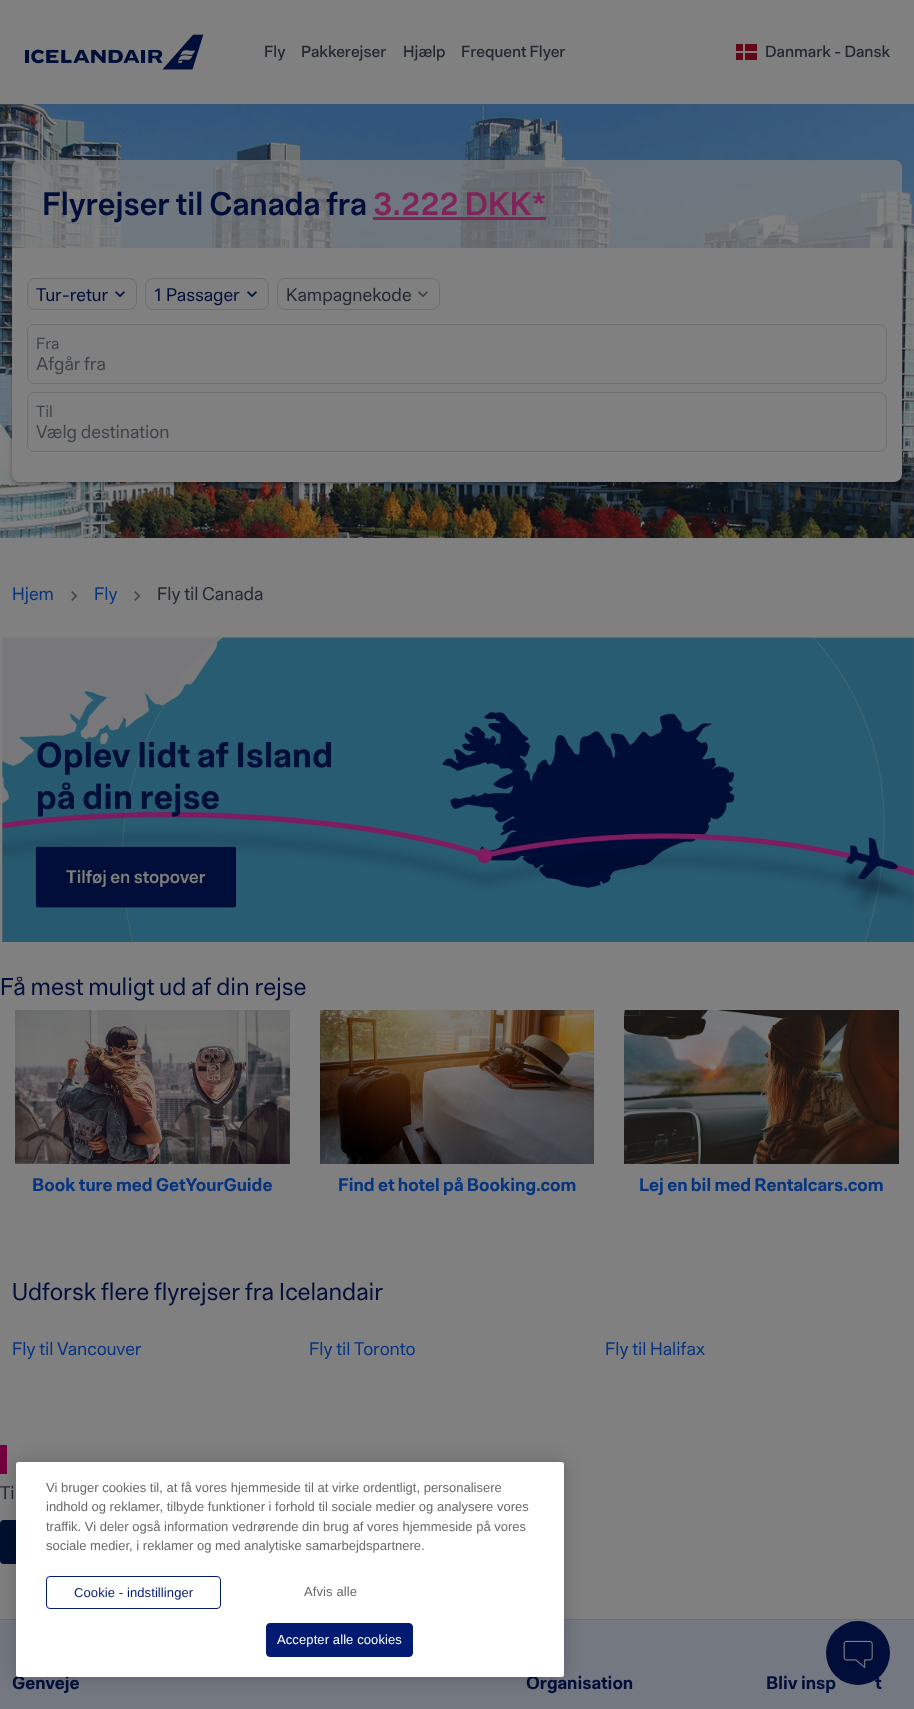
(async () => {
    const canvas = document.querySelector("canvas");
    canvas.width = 914;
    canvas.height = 1709;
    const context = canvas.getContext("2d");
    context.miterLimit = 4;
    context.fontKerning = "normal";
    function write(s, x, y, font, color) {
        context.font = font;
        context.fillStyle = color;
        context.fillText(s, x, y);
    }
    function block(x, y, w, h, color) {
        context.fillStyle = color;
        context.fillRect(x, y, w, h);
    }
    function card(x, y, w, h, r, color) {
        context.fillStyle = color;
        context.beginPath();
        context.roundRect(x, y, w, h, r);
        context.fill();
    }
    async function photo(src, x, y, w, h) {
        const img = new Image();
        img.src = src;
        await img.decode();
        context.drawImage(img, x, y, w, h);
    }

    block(0, 0, 914, 1709, "rgb(128, 128, 128)");
    await photo("media/1.png", 25, 34, 179, 36);
    write("Fly", 264, 57, "500 16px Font", "rgb(34, 40, 50)");
    write("Pakkerejser", 301, 57, "500 16px Font", "rgb(34, 40, 50)");
    write("Hjælp", 403, 57, "500 16px Font", "rgb(34, 40, 50)");
    write("Frequent Flyer", 461, 57, "500 16px Font", "rgb(34, 40, 50)");
    block(736, 44, 21, 16, "rgb(99, 6, 24)");
    block(743, 44, 2, 16, "rgb(128, 128, 128)");
    block(736, 51, 21, 2, "rgb(128, 128, 128)");
    write("Danmark - Dansk", 765, 57, "500 16px Font", "rgb(34, 40, 50)");
    await photo("media/2.png", 0, 104, 914, 434);
    context.fillStyle = "rgba(0, 0, 0, 0.3)";
    context.filter = "blur(2.5px)";
    context.beginPath();
    context.roundRect(12, 250, 890, 234, 8);
    context.fill();
    context.filter = "none";
    context.fillStyle = "rgba(128, 128, 128, 0.75)";
    context.beginPath();
    context.roundRect(12, 160, 890, 88, [8, 8, 0, 0]);
    context.fill();
    write("Flyrejser til Canada fra", 42, 215, "600 32px Font", "rgb(0, 14, 57)");
    write("3.222 DKK*", 373, 215, "600 32px Font", "rgb(128, 36, 90)");
    block(373, 217, 173, 3, "rgb(128, 36, 90)");
    context.fillStyle = "rgb(128, 128, 128)";
    context.beginPath();
    context.roundRect(12, 248, 890, 234, [0, 0, 8, 8]);
    context.fill();
    context.beginPath();
    context.roundRect(27.5, 278.5, 109, 31, 7.5);
    context.strokeStyle = "rgb(109, 110, 112)";
    context.stroke();
    write("Tur-retur", 36, 301, "18px Font", "rgb(0, 14, 57)");
    await photo("media/3.png", 115, 291, 10, 7);
    context.beginPath();
    context.roundRect(145.5, 278.5, 123, 31, 7.5);
    context.stroke();
    write("1 Passager", 154, 301, "18px Font", "rgb(0, 14, 57)");
    await photo("media/3.png", 247, 291, 10, 7);
    context.beginPath();
    context.roundRect(277.5, 278.5, 162, 31, 7.5);
    context.stroke();
    context.save();
    context.beginPath();
    context.rect(286, 284, 125, 21);
    context.clip();
    write("Kampagnekode", 286, 301, "18px Font", "rgb(34, 40, 50)");
    context.restore();
    await photo("media/4.png", 418, 291, 10, 7);
    context.beginPath();
    context.roundRect(27.5, 324.5, 859, 59, 7.5);
    context.stroke();
    write("Fra", 36, 349, "16px Font", "rgb(62, 67, 74)");
    write("Afgår fra", 36, 370, "18px Font", "rgb(62, 67, 74)");
    context.beginPath();
    context.roundRect(27.5, 392.5, 859, 59, 7.5);
    context.stroke();
    write("Til", 36, 417, "16px Font", "rgb(62, 67, 74)");
    write("Vælg destination", 36, 438, "18px Font", "rgb(62, 67, 74)");
    write("Hjem", 12, 600, "18px Font", "rgb(6, 52, 128)");
    await photo("media/5.png", 71, 591, 7, 10);
    write("Fly", 94, 600, "18px Font", "rgb(6, 52, 128)");
    await photo("media/5.png", 134, 591, 7, 10);
    write("Fly til Canada", 157, 600, "18px Font", "rgb(34, 40, 50)");
    await photo("media/6.png", 1, 637, 913, 305);
    write("Få mest muligt ud af din rejse", 0, 995, "24px Font", "rgb(0, 14, 57)");
    await photo("media/7.png", 15, 1010, 275, 154);
    write("Book ture med GetYourGuide", 32, 1191, "bold 18px Font", "rgb(6, 52, 128)");
    await photo("media/8.png", 320, 1010, 274, 154);
    write("Find et hotel på Booking.com", 338, 1191, "bold 18px Font", "rgb(6, 52, 128)");
    await photo("media/9.png", 624, 1010, 275, 154);
    write("Lej en bil med Rentalcars.com", 639, 1191, "bold 18px Font", "rgb(6, 52, 128)");
    write("Udforsk flere flyrejser fra Icelandair", 12, 1300, "24px Font", "rgb(0, 14, 57)");
    write("Fly til Vancouver", 12, 1355, "18px Font", "rgb(6, 52, 128)");
    write("Fly til Toronto", 309, 1355, "18px Font", "rgb(6, 52, 128)");
    write("Fly til Halifax", 605, 1355, "18px Font", "rgb(6, 52, 128)");
    block(0, 1445, 7, 29, "rgb(115, 0, 63)");
    write("Ti", 0, 1499, "18px Font", "rgb(34, 40, 50)");
    card(0, 1520, 159, 44, 4, "rgb(0, 16, 46)");
    block(0, 1620, 914, 89, "rgb(116, 120, 128)");
    block(0, 1619, 914, 1, "rgb(109, 110, 112)");
    write("Genveje", 12, 1689, "bold 18px Font", "rgb(0, 14, 57)");
    write("Organisation", 526, 1689, "bold 18px Font", "rgb(0, 14, 57)");
    write("Bliv insp", 766, 1689, "bold 18px Font", "rgb(0, 14, 57)");
    write("t", 875, 1689, "bold 18px Font", "rgb(0, 14, 57)");
    context.fillStyle = "rgba(0, 0, 0, 0.2)";
    context.filter = "blur(9px)";
    context.beginPath();
    context.roundRect(16, 1462, 548, 215, 2.5);
    context.fill();
    context.filter = "none";
    card(16, 1462, 548, 215, 2.5, "rgb(255, 255, 255)");
    write("Vi bruger cookies til, at få vores hjemmeside til at virke ordentligt, personalisere", 46, 1492, "13px Liberation Sans", "rgb(105, 105, 105)");
    write("indhold og reklamer, tilbyde funktioner i forhold til sociale medier og analysere vores", 46, 1511, "13px Liberation Sans", "rgb(105, 105, 105)");
    write("traffik. Vi deler også information vedrørende din brug af vores hjemmeside på vores", 46, 1531, "13px Liberation Sans", "rgb(105, 105, 105)");
    write("sociale medier, i reklamer og med analytiske samarbejdspartnere.", 46, 1550, "13px Liberation Sans", "rgb(105, 105, 105)");
    context.beginPath();
    context.roundRect(46.5, 1576.5, 174, 32, 3.5);
    context.strokeStyle = "rgb(0, 27, 113)";
    context.stroke();
    context.letterSpacing = "0.1px";
    write("Cookie - indstillinger", 74, 1597, "13px Liberation Sans", "rgb(0, 27, 113)");
    write("Afvis alle", 304, 1596, "13px Liberation Sans", "rgb(105, 105, 105)");
    context.fillStyle = "rgb(0, 27, 113)";
    context.beginPath();
    context.roundRect(266.5, 1623.5, 146, 33, 3.5);
    context.fill();
    context.stroke();
    write("Accepter alle cookies", 277, 1644, "13px Liberation Sans", "rgb(255, 255, 255)");
    context.fillStyle = "rgb(0, 14, 57)";
    context.beginPath();
    context.arc(858, 1653, 32, 0, Math.PI * 2);
    context.fill();
    await photo("media/10.png", 843, 1640, 30, 28);
})();
